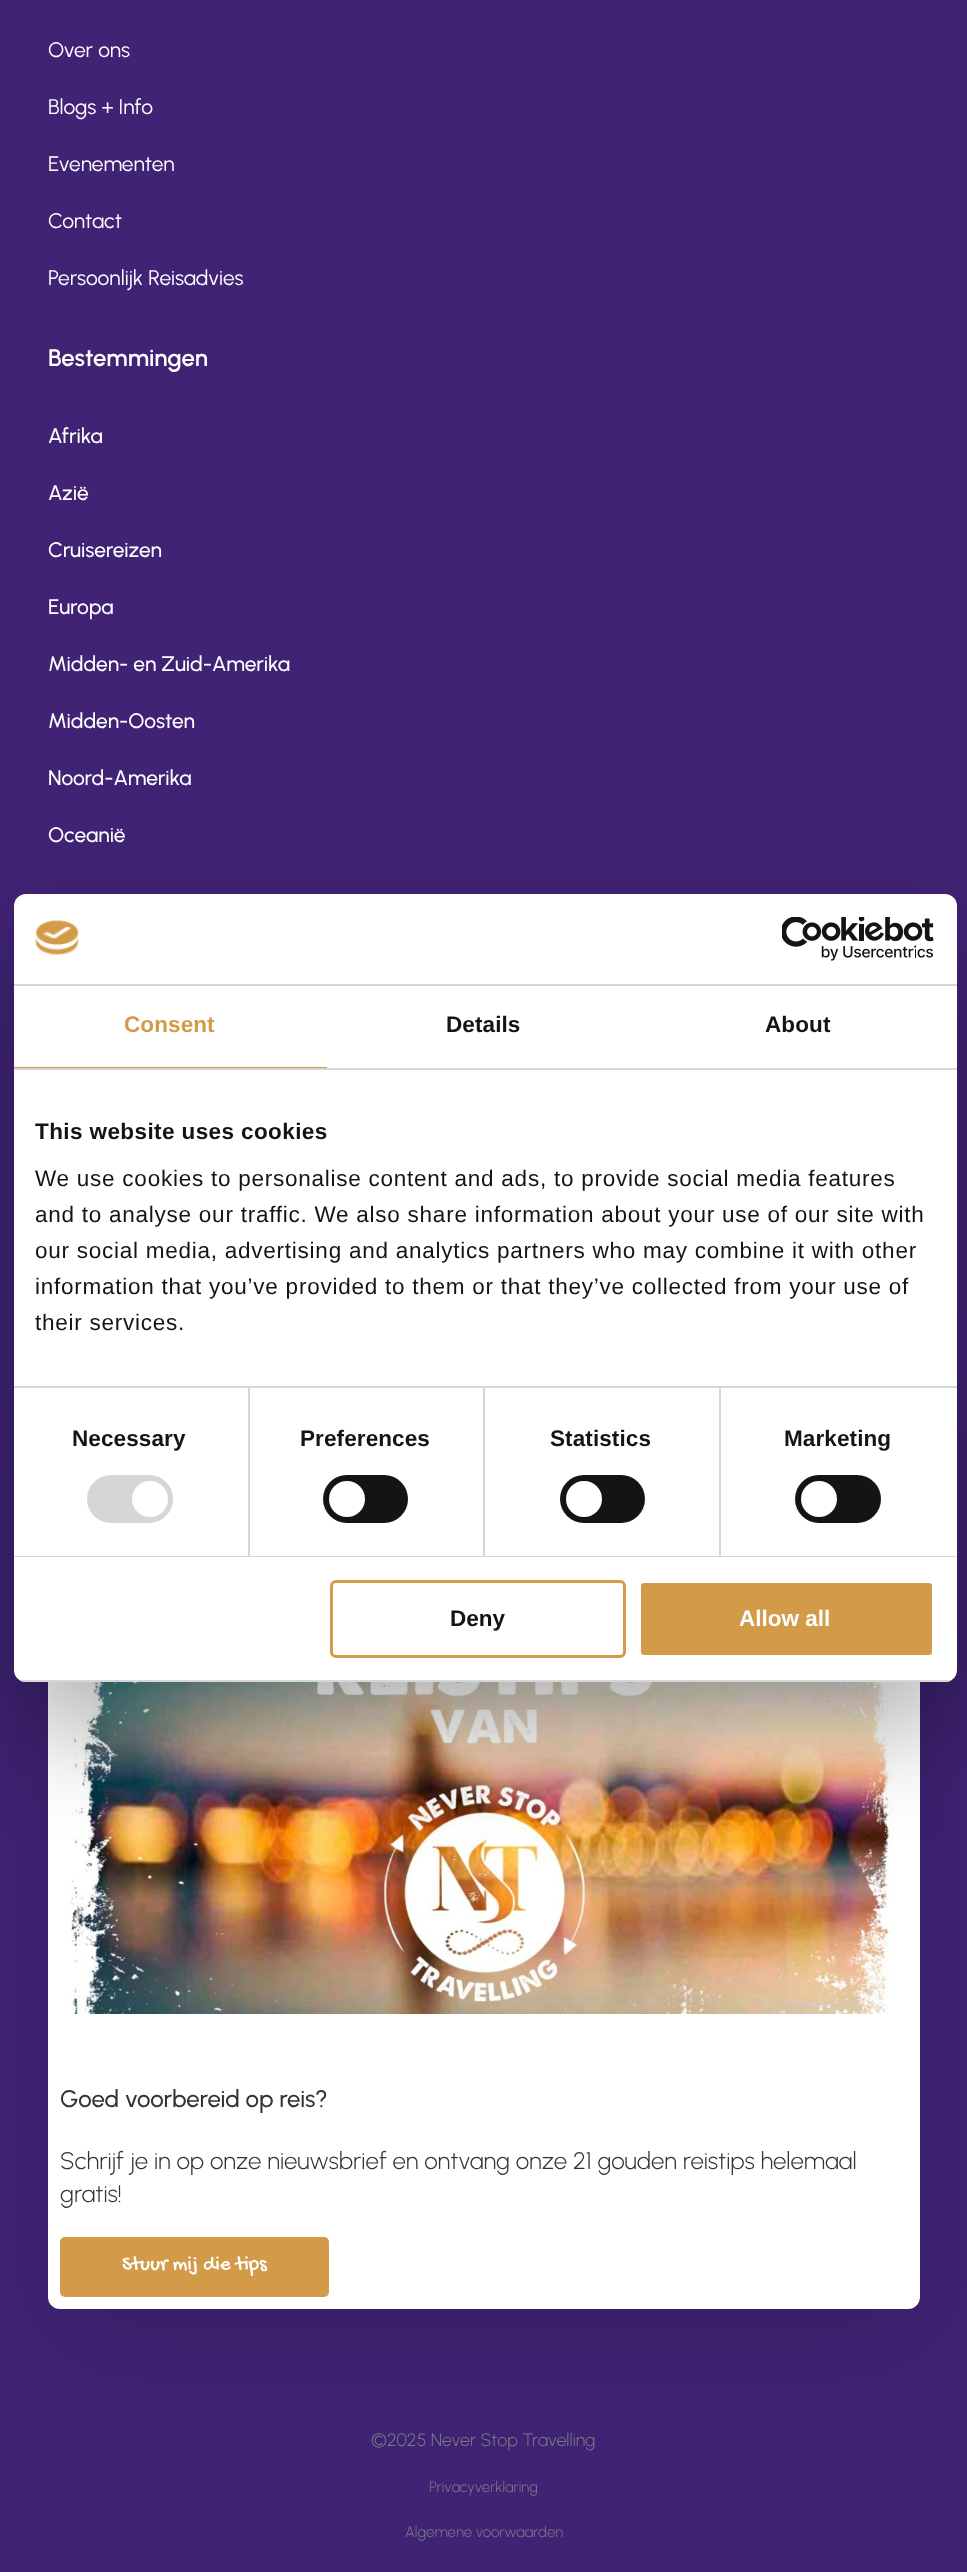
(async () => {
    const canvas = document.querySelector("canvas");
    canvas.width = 967;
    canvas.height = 2572;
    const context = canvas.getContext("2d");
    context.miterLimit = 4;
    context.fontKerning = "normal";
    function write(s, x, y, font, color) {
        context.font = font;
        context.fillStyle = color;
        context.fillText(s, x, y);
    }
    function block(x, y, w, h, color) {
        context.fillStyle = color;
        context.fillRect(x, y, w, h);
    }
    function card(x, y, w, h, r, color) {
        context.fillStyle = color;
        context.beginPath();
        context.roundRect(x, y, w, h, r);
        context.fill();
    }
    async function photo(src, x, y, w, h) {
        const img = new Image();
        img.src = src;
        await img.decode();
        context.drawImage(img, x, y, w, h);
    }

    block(0, 0, 967, 2572, "rgb(64, 35, 117)");
    write("Over ons", 48, 57, "21px Urbanist", "rgb(255, 255, 255)");
    write("Blogs + Info", 48, 114, "21px Urbanist", "rgb(255, 255, 255)");
    write("Evenementen", 48, 171, "21px Urbanist", "rgb(255, 255, 255)");
    write("Contact", 48, 228, "21px Urbanist", "rgb(255, 255, 255)");
    write("Persoonlijk Reisadvies", 48, 285, "21px Urbanist", "rgb(255, 255, 255)");
    write("Bestemmingen", 48, 366, "600 24px Urbanist", "rgb(255, 255, 255)");
    write("Afrika", 48, 443, "500 21px Urbanist", "rgb(255, 255, 255)");
    write("Azië", 48, 500, "500 21px Urbanist", "rgb(255, 255, 255)");
    write("Cruisereizen", 48, 557, "500 21px Urbanist", "rgb(255, 255, 255)");
    write("Europa", 48, 614, "500 21px Urbanist", "rgb(255, 255, 255)");
    write("Midden- en Zuid-Amerika", 48, 671, "500 21px Urbanist", "rgb(255, 255, 255)");
    write("Midden-Oosten", 48, 728, "500 21px Urbanist", "rgb(255, 255, 255)");
    write("Noord-Amerika", 48, 785, "500 21px Urbanist", "rgb(255, 255, 255)");
    write("Oceanië", 48, 842, "500 21px Urbanist", "rgb(255, 255, 255)");
    context.fillStyle = "rgba(0, 0, 0, 0.14)";
    context.filter = "blur(56px)";
    context.beginPath();
    context.roundRect(56, 1397, 871, 942, 12);
    context.fill();
    context.filter = "none";
    card(48, 1367, 872, 942, 12, "rgb(255, 255, 255)");
    await photo("media/1.png", 70, 1682, 827, 332);
    write("Goed voorbereid op reis?", 60, 2107, "500 24px Urbanist", "rgb(51, 51, 51)");
    write("Schrijf je in op onze nieuwsbrief en ontvang onze 21 gouden reistips helemaal", 60, 2169, "300 24px Urbanist", "rgb(51, 51, 51)");
    write("gratis!", 60, 2202, "300 24px Urbanist", "rgb(51, 51, 51)");
    card(60, 2237, 269, 60, 5, "rgb(211, 155, 72)");
    write("Stuur mij die tips", 122, 2269, "21px Gochi Hand", "rgb(255, 255, 255)");
    write("©2025 Never Stop Travelling", 371, 2446, "300 18px Urbanist", "rgb(121, 124, 132)");
    write("Privacyverklaring", 429, 2492, "300 15px Urbanist", "rgb(121, 124, 132)");
    write("Algemene voorwaarden", 405, 2537, "300 15px Urbanist", "rgb(121, 124, 132)");
    context.fillStyle = "rgba(0, 0, 0, 0.3)";
    context.filter = "blur(51px)";
    context.beginPath();
    context.roundRect(14, 942, 943, 788, 12);
    context.fill();
    context.filter = "none";
    card(14, 894, 943, 788, 12, "rgb(255, 255, 255)");
    block(14, 984, 943, 2, "rgb(214, 214, 214)");
    await photo("media/2.png", 34, 920, 45, 35);
    await photo("media/3.png", 782, 917, 152, 44);
    block(14, 1068, 943, 2, "rgb(214, 214, 214)");
    block(14, 1067, 313, 1, "rgb(211, 155, 72)");
    context.letterSpacing = "0.1px";
    write("Consent", 124, 1032, "bold 22.5px Liberation Sans", "rgb(211, 155, 72)");
    write("Details", 446, 1032, "bold 22.5px Liberation Sans", "rgb(20, 20, 20)");
    write("About", 765, 1032, "bold 22.5px Liberation Sans", "rgb(20, 20, 20)");
    block(14, 1386, 943, 2, "rgb(214, 214, 214)");
    context.letterSpacing = "0.4px";
    write("This website uses cookies", 35, 1139, "bold 22.5px Liberation Sans", "rgb(20, 20, 20)");
    context.letterSpacing = "0.75px";
    write("We use cookies to personalise content and ads, to provide social media features", 35, 1186, "22.5px Liberation Sans", "rgb(20, 20, 20)");
    write("and to analyse our traffic. We also share information about your use of our site with", 35, 1222, "22.5px Liberation Sans", "rgb(20, 20, 20)");
    write("our social media, advertising and analytics partners who may combine it with other", 35, 1258, "22.5px Liberation Sans", "rgb(20, 20, 20)");
    write("information that you’ve provided to them or that they’ve collected from your use of", 35, 1294, "22.5px Liberation Sans", "rgb(20, 20, 20)");
    write("their services.", 35, 1330, "22.5px Liberation Sans", "rgb(20, 20, 20)");
    block(14, 1556, 943, 1, "rgb(214, 214, 214)");
    block(248, 1388, 2, 168, "rgb(214, 214, 214)");
    context.letterSpacing = "0.1px";
    write("Necessary", 72, 1446, "bold 22.5px Liberation Sans", "rgb(20, 20, 20)");
    card(87, 1475, 86, 48, 24, "rgb(214, 214, 214)");
    context.fillStyle = "rgb(255, 255, 255)";
    context.beginPath();
    context.arc(150, 1499, 18, 0, Math.PI * 2);
    context.fill();
    block(483, 1388, 2, 168, "rgb(214, 214, 214)");
    write("Preferences", 300, 1446, "bold 22.5px Liberation Sans", "rgb(20, 20, 20)");
    card(323, 1475, 85, 48, 24, "rgb(20, 20, 20)");
    context.fillStyle = "rgb(255, 255, 255)";
    context.beginPath();
    context.arc(347, 1499, 18, 0, Math.PI * 2);
    context.fill();
    block(719, 1388, 2, 168, "rgb(214, 214, 214)");
    write("Statistics", 550, 1446, "bold 22.5px Liberation Sans", "rgb(20, 20, 20)");
    card(560, 1475, 85, 48, 24, "rgb(20, 20, 20)");
    context.fillStyle = "rgb(255, 255, 255)";
    context.beginPath();
    context.arc(584, 1499, 18, 0, Math.PI * 2);
    context.fill();
    write("Marketing", 784, 1446, "bold 22.5px Liberation Sans", "rgb(20, 20, 20)");
    card(795, 1475, 86, 48, 24, "rgb(20, 20, 20)");
    context.fillStyle = "rgb(255, 255, 255)";
    context.beginPath();
    context.arc(819, 1499, 18, 0, Math.PI * 2);
    context.fill();
    context.save();
    context.beginPath();
    context.roundRect(14, 894, 943, 788, 12);
    context.clip();
    block(14, 1680, 943, 2, "rgb(214, 214, 214)");
    context.restore();
    context.beginPath();
    context.roundRect(331.5, 1581.5, 293, 75, 4.5);
    context.strokeStyle = "rgb(211, 155, 72)";
    context.lineWidth = 3;
    context.stroke();
    context.letterSpacing = "0px";
    write("Deny", 450, 1626, "bold 22.5px Liberation Sans", "rgb(20, 20, 20)");
    context.fillStyle = "rgb(211, 155, 72)";
    context.beginPath();
    context.roundRect(639.5, 1581.5, 294, 75, 4.5);
    context.fill();
    context.strokeStyle = "rgb(255, 255, 255)";
    context.stroke();
    write("Allow all", 739, 1626, "bold 22.5px Liberation Sans", "rgb(255, 255, 255)");
})();
